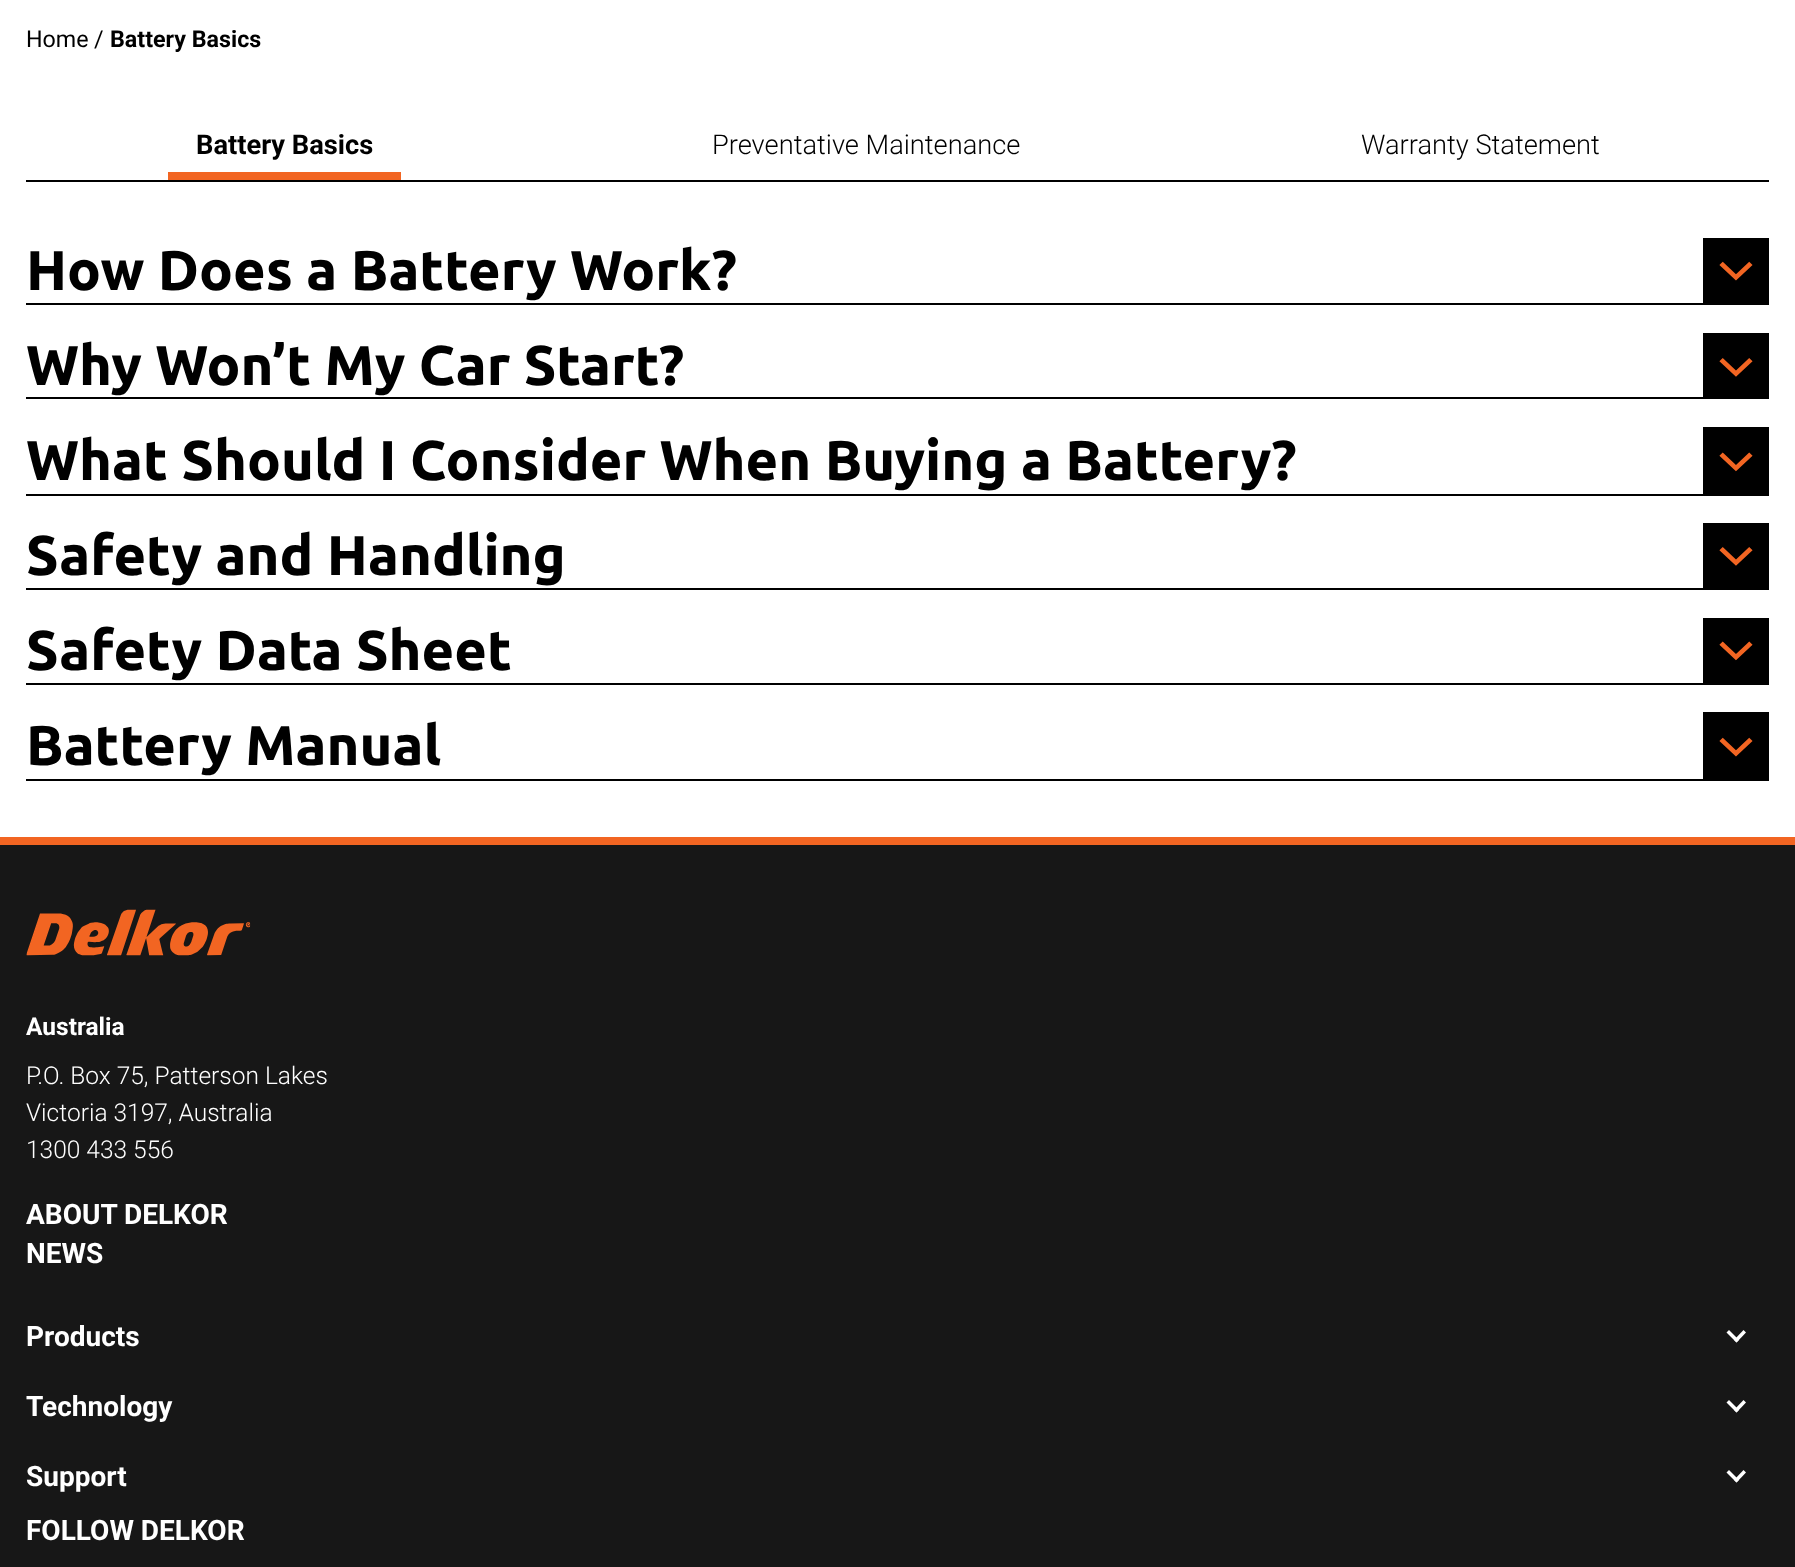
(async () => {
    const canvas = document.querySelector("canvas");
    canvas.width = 1795;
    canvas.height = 1567;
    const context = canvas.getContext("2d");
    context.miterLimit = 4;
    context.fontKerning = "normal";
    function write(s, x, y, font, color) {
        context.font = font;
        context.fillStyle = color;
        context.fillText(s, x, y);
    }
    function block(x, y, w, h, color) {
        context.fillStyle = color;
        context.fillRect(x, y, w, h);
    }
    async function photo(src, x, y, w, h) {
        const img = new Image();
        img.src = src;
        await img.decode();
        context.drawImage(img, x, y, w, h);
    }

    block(0, 0, 1795, 1567, "rgb(255, 255, 255)");
    write("Home", 26, 47, "23.25px Roboto", "rgb(0, 0, 0)");
    write("/", 94, 47, "23.25px Roboto", "rgb(0, 0, 0)");
    write("Battery Basics", 110, 47, "bold 23.25px Roboto", "rgb(0, 0, 0)");
    block(26, 180, 1743, 2, "rgb(0, 0, 0)");
    write("Battery Basics", 196, 154, "bold 27.25px Roboto", "rgb(0, 0, 0)");
    block(168, 172, 233, 8, "rgb(242, 101, 34)");
    write("Preventative Maintenance", 712, 154, "300 27.25px Roboto", "rgb(0, 0, 0)");
    write("Warranty Statement", 1361, 154, "300 27.25px Roboto", "rgb(0, 0, 0)");
    block(26, 303, 1743, 2, "rgb(0, 0, 0)");
    write("How Does a Battery Work?", 26, 290, "bold 56px Ubuntu", "rgb(0, 0, 0)");
    block(1703, 238, 66, 65, "rgb(0, 0, 0)");
    await photo("media/1.png", 1719, 261, 34, 20);
    block(26, 397, 1743, 2, "rgb(0, 0, 0)");
    write("Why Won’t My Car Start?", 26, 385, "bold 56px Ubuntu", "rgb(0, 0, 0)");
    block(1703, 333, 66, 64, "rgb(0, 0, 0)");
    await photo("media/2.png", 1719, 358, 34, 19);
    block(26, 494, 1743, 2, "rgb(0, 0, 0)");
    write("What Should I Consider When Buying a Battery?", 26, 480, "bold 56px Ubuntu", "rgb(0, 0, 0)");
    block(1703, 427, 66, 67, "rgb(0, 0, 0)");
    await photo("media/3.png", 1719, 452, 34, 20);
    block(26, 588, 1743, 2, "rgb(0, 0, 0)");
    write("Safety and Handling", 26, 575, "bold 56px Ubuntu", "rgb(0, 0, 0)");
    block(1703, 523, 66, 65, "rgb(0, 0, 0)");
    await photo("media/2.png", 1719, 547, 34, 19);
    block(26, 683, 1743, 2, "rgb(0, 0, 0)");
    write("Safety Data Sheet", 26, 670, "bold 56px Ubuntu", "rgb(0, 0, 0)");
    block(1703, 618, 66, 65, "rgb(0, 0, 0)");
    await photo("media/4.png", 1719, 641, 34, 20);
    block(26, 779, 1743, 2, "rgb(0, 0, 0)");
    write("Battery Manual", 26, 765, "bold 56px Ubuntu", "rgb(0, 0, 0)");
    block(1703, 712, 66, 67, "rgb(0, 0, 0)");
    await photo("media/1.png", 1719, 737, 34, 20);
    block(0, 845, 1795, 722, "rgb(23, 23, 23)");
    block(0, 837, 1795, 8, "rgb(242, 101, 34)");
    await photo("media/5.png", 26, 909, 225, 47);
    write("Australia", 26, 1035, "bold 24.5px Roboto", "rgb(255, 255, 255)");
    write("P.O. Box 75, Patterson Lakes", 26, 1084, "300 24.5px Roboto", "rgb(255, 255, 255)");
    write("Victoria 3197, Australia", 26, 1121, "300 24.5px Roboto", "rgb(255, 255, 255)");
    write("1300 433 556", 26, 1158, "300 24.5px Roboto", "rgb(255, 255, 255)");
    write("ABOUT DELKOR", 26, 1224, "bold 28px Roboto", "rgb(255, 255, 255)");
    write("NEWS", 26, 1263, "bold 28px Roboto", "rgb(255, 255, 255)");
    write("Products", 26, 1346, "bold 28px Roboto", "rgb(255, 255, 255)");
    context.beginPath();
    context.moveTo(1743.5, 1330);
    context.lineTo(1746, 1332.5);
    context.lineTo(1736.5, 1342.5);
    context.lineTo(1734, 1340);
    context.closePath();
    context.fill();
    context.beginPath();
    context.moveTo(1729, 1330);
    context.lineTo(1739, 1340);
    context.lineTo(1736.5, 1342.5);
    context.lineTo(1726.5, 1332.5);
    context.closePath();
    context.fill();
    write("Technology", 26, 1416, "bold 28px Roboto", "rgb(255, 255, 255)");
    context.beginPath();
    context.moveTo(1743.5, 1400);
    context.lineTo(1746, 1402.5);
    context.lineTo(1736.5, 1412.5);
    context.lineTo(1734, 1410);
    context.closePath();
    context.fill();
    context.beginPath();
    context.moveTo(1729, 1400);
    context.lineTo(1739, 1410);
    context.lineTo(1736.5, 1412.5);
    context.lineTo(1726.5, 1402.5);
    context.closePath();
    context.fill();
    write("Support", 26, 1486, "bold 28px Roboto", "rgb(255, 255, 255)");
    context.beginPath();
    context.moveTo(1743.5, 1470);
    context.lineTo(1746, 1472.5);
    context.lineTo(1736.5, 1482.5);
    context.lineTo(1734, 1480);
    context.closePath();
    context.fill();
    context.beginPath();
    context.moveTo(1729, 1470);
    context.lineTo(1739, 1480);
    context.lineTo(1736.5, 1482.5);
    context.lineTo(1726.5, 1472.5);
    context.closePath();
    context.fill();
    write("FOLLOW DELKOR", 26, 1540, "bold 28px Roboto", "rgb(255, 255, 255)");
})();
